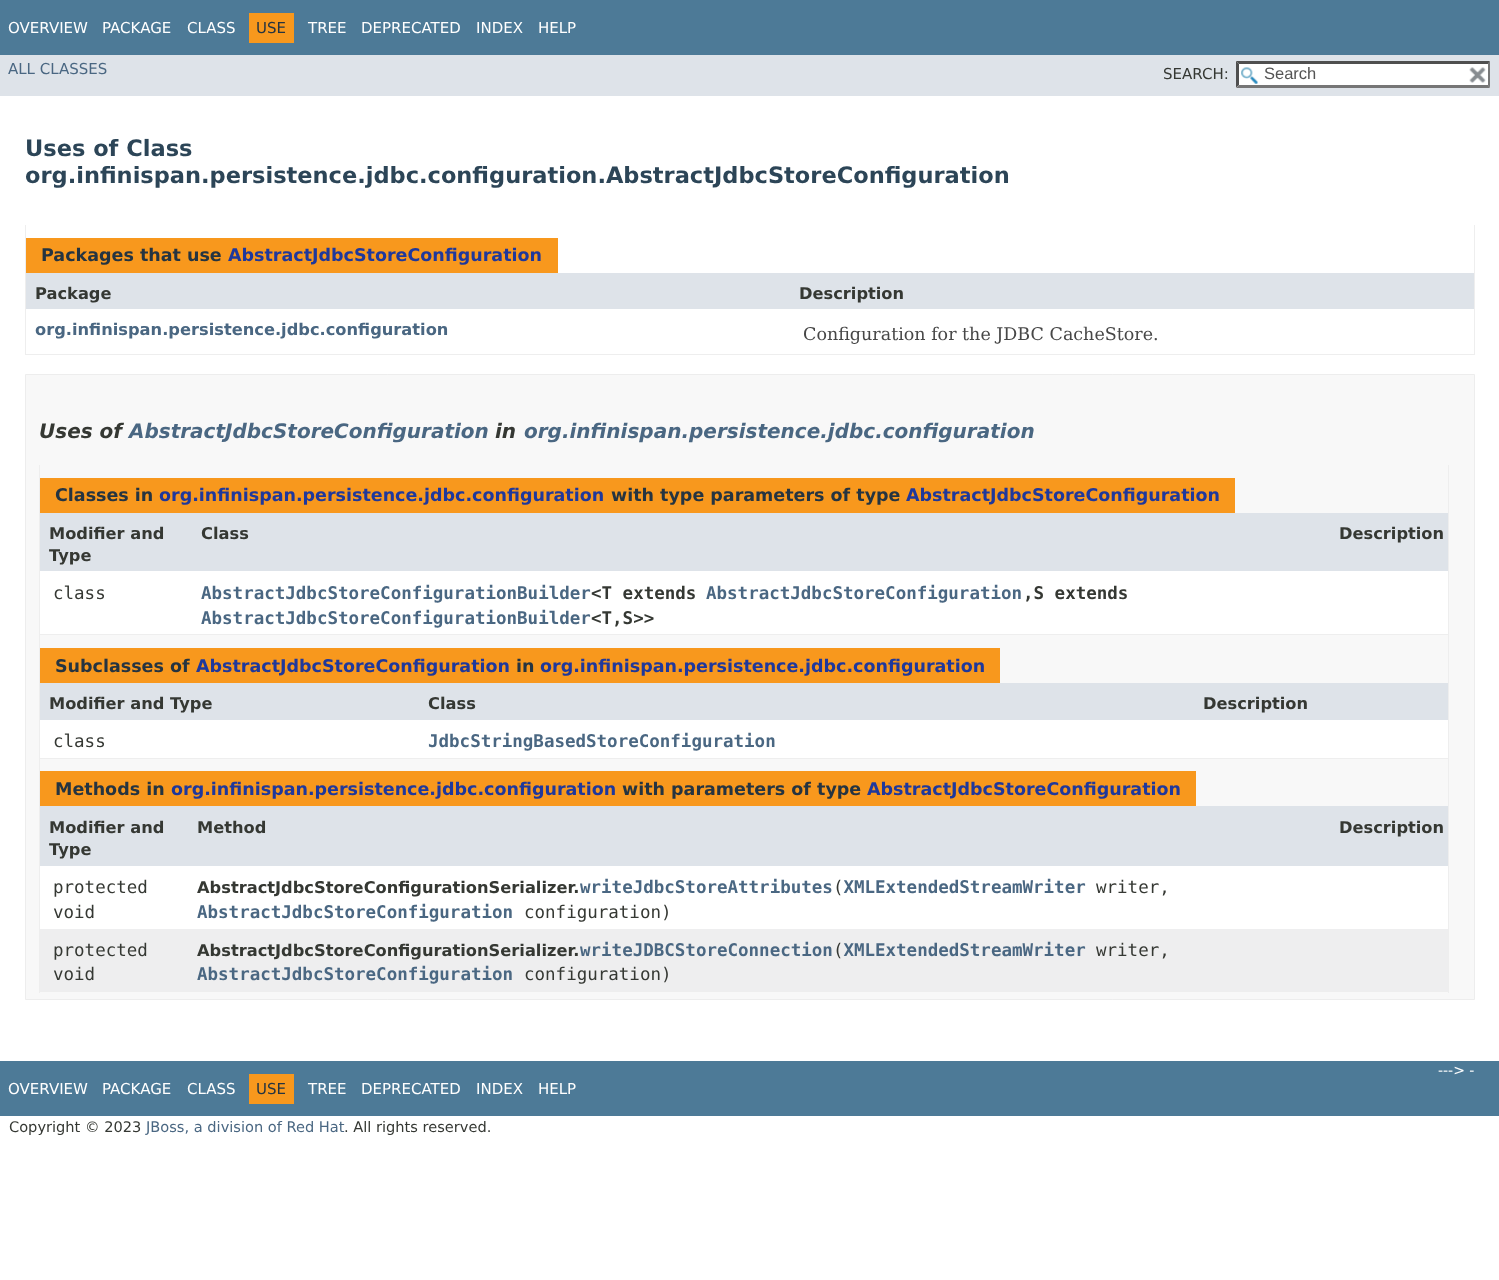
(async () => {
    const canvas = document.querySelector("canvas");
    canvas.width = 1499;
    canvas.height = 1280;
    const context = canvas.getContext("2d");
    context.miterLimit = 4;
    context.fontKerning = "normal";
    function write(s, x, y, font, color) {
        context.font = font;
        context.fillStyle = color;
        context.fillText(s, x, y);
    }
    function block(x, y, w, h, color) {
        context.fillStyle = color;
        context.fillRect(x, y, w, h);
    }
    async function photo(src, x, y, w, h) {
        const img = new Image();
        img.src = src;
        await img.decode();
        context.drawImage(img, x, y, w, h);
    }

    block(0, 0, 1499, 1280, "rgb(255, 255, 255)");
    block(0, 0, 1499, 55, "rgb(77, 122, 151)");
    write("OVERVIEW", 8, 33, "15px DejaVu Sans", "rgb(255, 255, 255)");
    write("PACKAGE", 102, 33, "15px DejaVu Sans", "rgb(255, 255, 255)");
    write("CLASS", 187, 33, "15px DejaVu Sans", "rgb(255, 255, 255)");
    block(249, 13, 45, 30, "rgb(248, 152, 29)");
    write("USE", 256, 33, "15px DejaVu Sans", "rgb(37, 52, 65)");
    write("TREE", 308, 33, "15px DejaVu Sans", "rgb(255, 255, 255)");
    write("DEPRECATED", 361, 33, "15px DejaVu Sans", "rgb(255, 255, 255)");
    write("INDEX", 476, 33, "15px DejaVu Sans", "rgb(255, 255, 255)");
    write("HELP", 538, 33, "15px DejaVu Sans", "rgb(255, 255, 255)");
    block(0, 55, 1499, 41, "rgb(222, 227, 233)");
    write("ALL CLASSES", 8, 74, "15px DejaVu Sans", "rgb(74, 103, 130)");
    write("SEARCH:", 1163, 79, "15px DejaVu Sans", "rgb(53, 56, 51)");
    block(1236, 61, 254, 27, "rgb(255, 255, 255)");
    await photo("media/1.png", 1241, 67, 17, 17);
    context.fillStyle = "rgb(79, 79, 79)";
    context.beginPath();
    context.moveTo(1236, 61);
    context.lineTo(1490, 61);
    context.lineTo(1488, 64);
    context.lineTo(1239, 64);
    context.closePath();
    context.fill();
    context.fillStyle = "rgb(118, 118, 118)";
    context.beginPath();
    context.moveTo(1490, 61);
    context.lineTo(1490, 87.5);
    context.lineTo(1487.5, 85);
    context.lineTo(1487.5, 64);
    context.closePath();
    context.fill();
    context.beginPath();
    context.moveTo(1490, 88);
    context.lineTo(1236, 88);
    context.lineTo(1239, 85);
    context.lineTo(1488, 85);
    context.closePath();
    context.fill();
    context.fillStyle = "rgb(79, 79, 79)";
    context.beginPath();
    context.moveTo(1236, 87.5);
    context.lineTo(1236, 61);
    context.lineTo(1239, 64);
    context.lineTo(1239, 85);
    context.closePath();
    context.fill();
    write("Search", 1264, 79, "16.5px Liberation Sans", "rgb(84, 84, 84)");
    block(1487, 64, 1, 21, "rgb(255, 255, 255)");
    await photo("media/2.png", 1469, 67, 17, 16);
    write("Uses of Class", 25, 156, "bold 22.5px DejaVu Sans", "rgb(44, 69, 87)");
    write("org.infinispan.persistence.jdbc.configuration.AbstractJdbcStoreConfiguration", 25, 183, "bold 22.5px DejaVu Sans", "rgb(44, 69, 87)");
    block(1474, 225, 1, 130, "rgb(238, 238, 238)");
    block(25, 354, 1450, 1, "rgb(238, 238, 238)");
    block(25, 225, 1, 130, "rgb(238, 238, 238)");
    block(26, 238, 532, 35, "rgb(248, 152, 29)");
    write("Packages that use", 41, 261, "bold 17.5px DejaVu Sans", "rgb(37, 52, 65)");
    write("AbstractJdbcStoreConfiguration", 228, 261, "bold 17.5px DejaVu Sans", "rgb(31, 56, 156)");
    block(26, 273, 1448, 36, "rgb(222, 227, 233)");
    write("Package", 35, 299, "bold 16.25px DejaVu Sans", "rgb(53, 56, 51)");
    write("Description", 799, 299, "bold 16.25px DejaVu Sans", "rgb(53, 56, 51)");
    write("org.infinispan.persistence.jdbc.configuration", 35, 335, "bold 16.25px DejaVu Sans", "rgb(74, 103, 130)");
    write("Configuration for the JDBC CacheStore.", 803, 340, "17.5px DejaVu Serif", "rgb(71, 71, 71)");
    context.fillStyle = "rgb(248, 248, 248)";
    context.beginPath();
    context.rect(25.5, 374.5, 1449, 625);
    context.fill();
    context.strokeStyle = "rgb(237, 237, 237)";
    context.stroke();
    write("Uses of", 39, 438, "italic bold 20px DejaVu Sans", "rgb(53, 56, 51)");
    write("AbstractJdbcStoreConfiguration", 129, 438, "italic bold 20px DejaVu Sans", "rgb(74, 103, 130)");
    write("in", 495, 438, "italic bold 20px DejaVu Sans", "rgb(53, 56, 51)");
    write("org.infinispan.persistence.jdbc.configuration", 524, 438, "italic bold 20px DejaVu Sans", "rgb(74, 103, 130)");
    block(1448, 465, 1, 528, "rgb(238, 238, 238)");
    block(39, 634, 1410, 1, "rgb(238, 238, 238)");
    block(39, 465, 1, 170, "rgb(238, 238, 238)");
    block(40, 478, 1195, 35, "rgb(248, 152, 29)");
    write("Classes in", 55, 501, "bold 17.5px DejaVu Sans", "rgb(37, 52, 65)");
    write("org.infinispan.persistence.jdbc.configuration", 159, 501, "bold 17.5px DejaVu Sans", "rgb(31, 56, 156)");
    write("with type parameters of type", 611, 501, "bold 17.5px DejaVu Sans", "rgb(37, 52, 65)");
    write("AbstractJdbcStoreConfiguration", 906, 501, "bold 17.5px DejaVu Sans", "rgb(31, 56, 156)");
    block(40, 513, 1408, 58, "rgb(222, 227, 233)");
    write("Modifier and", 49, 539, "bold 16.25px DejaVu Sans", "rgb(53, 56, 51)");
    write("Type", 49, 561, "bold 16.25px DejaVu Sans", "rgb(53, 56, 51)");
    write("Class", 201, 539, "bold 16.25px DejaVu Sans", "rgb(53, 56, 51)");
    write("Description", 1339, 539, "bold 16.25px DejaVu Sans", "rgb(53, 56, 51)");
    block(40, 571, 1408, 63, "rgb(255, 255, 255)");
    write("class", 53, 599, "17.5px DejaVu Sans Mono", "rgb(53, 56, 51)");
    write("AbstractJdbcStoreConfigurationBuilder", 201, 599, "bold 17.5px DejaVu Sans Mono", "rgb(74, 103, 130)");
    write("<T extends", 591, 599, "bold 17.5px DejaVu Sans Mono", "rgb(53, 56, 51)");
    write("AbstractJdbcStoreConfiguration", 706, 599, "bold 17.5px DejaVu Sans Mono", "rgb(74, 103, 130)");
    write(",S extends", 1023, 599, "bold 17.5px DejaVu Sans Mono", "rgb(53, 56, 51)");
    write("AbstractJdbcStoreConfigurationBuilder", 201, 624, "bold 17.5px DejaVu Sans Mono", "rgb(74, 103, 130)");
    write("<T,S>>", 591, 624, "bold 17.5px DejaVu Sans Mono", "rgb(53, 56, 51)");
    block(39, 758, 1410, 1, "rgb(238, 238, 238)");
    block(39, 635, 1, 124, "rgb(238, 238, 238)");
    block(40, 648, 960, 35, "rgb(248, 152, 29)");
    write("Subclasses of", 55, 672, "bold 17.5px DejaVu Sans", "rgb(37, 52, 65)");
    write("AbstractJdbcStoreConfiguration", 196, 672, "bold 17.5px DejaVu Sans", "rgb(31, 56, 156)");
    write("in", 516, 672, "bold 17.5px DejaVu Sans", "rgb(37, 52, 65)");
    write("org.infinispan.persistence.jdbc.configuration", 540, 672, "bold 17.5px DejaVu Sans", "rgb(31, 56, 156)");
    block(40, 683, 1408, 37, "rgb(222, 227, 233)");
    write("Modifier and Type", 49, 709, "bold 16.25px DejaVu Sans", "rgb(53, 56, 51)");
    write("Class", 428, 709, "bold 16.25px DejaVu Sans", "rgb(53, 56, 51)");
    write("Description", 1203, 709, "bold 16.25px DejaVu Sans", "rgb(53, 56, 51)");
    block(40, 720, 1408, 38, "rgb(255, 255, 255)");
    write("class", 53, 747, "17.5px DejaVu Sans Mono", "rgb(53, 56, 51)");
    write("JdbcStringBasedStoreConfiguration", 428, 747, "bold 17.5px DejaVu Sans Mono", "rgb(74, 103, 130)");
    block(39, 991, 1410, 1, "rgb(238, 238, 238)");
    block(39, 759, 1, 234, "rgb(238, 238, 238)");
    block(40, 771, 1156, 35, "rgb(248, 152, 29)");
    write("Methods in", 55, 795, "bold 17.5px DejaVu Sans", "rgb(37, 52, 65)");
    write("org.infinispan.persistence.jdbc.configuration", 171, 795, "bold 17.5px DejaVu Sans", "rgb(31, 56, 156)");
    write("with parameters of type", 622, 795, "bold 17.5px DejaVu Sans", "rgb(37, 52, 65)");
    write("AbstractJdbcStoreConfiguration", 867, 795, "bold 17.5px DejaVu Sans", "rgb(31, 56, 156)");
    block(40, 806, 1408, 60, "rgb(222, 227, 233)");
    write("Modifier and", 49, 833, "bold 16.25px DejaVu Sans", "rgb(53, 56, 51)");
    write("Type", 49, 855, "bold 16.25px DejaVu Sans", "rgb(53, 56, 51)");
    write("Method", 197, 833, "bold 16.25px DejaVu Sans", "rgb(53, 56, 51)");
    write("Description", 1339, 833, "bold 16.25px DejaVu Sans", "rgb(53, 56, 51)");
    block(40, 866, 1408, 63, "rgb(255, 255, 255)");
    write("protected", 53, 893, "17.5px DejaVu Sans Mono", "rgb(53, 56, 51)");
    write("void", 53, 918, "17.5px DejaVu Sans Mono", "rgb(53, 56, 51)");
    write("writeJdbcStoreAttributes XMLExtendedStreamWriter", 580, 893, "bold 17.5px DejaVu Sans Mono", "rgb(74, 103, 130)");
    write("AbstractJdbcStoreConfigurationSerializer.", 197, 893, "bold 16.25px DejaVu Sans", "rgb(53, 56, 51)");
    write("(", 833, 893, "17.5px DejaVu Sans Mono", "rgb(53, 56, 51)");
    write("writer,", 1096, 893, "17.5px DejaVu Sans Mono", "rgb(53, 56, 51)");
    write("AbstractJdbcStoreConfiguration", 197, 918, "bold 17.5px DejaVu Sans Mono", "rgb(74, 103, 130)");
    write("configuration)", 524, 918, "17.5px DejaVu Sans Mono", "rgb(53, 56, 51)");
    block(40, 929, 1408, 62, "rgb(238, 238, 239)");
    write("protected", 53, 956, "17.5px DejaVu Sans Mono", "rgb(53, 56, 51)");
    write("void", 53, 980, "17.5px DejaVu Sans Mono", "rgb(53, 56, 51)");
    write("writeJDBCStoreConnection XMLExtendedStreamWriter", 580, 956, "bold 17.5px DejaVu Sans Mono", "rgb(74, 103, 130)");
    write("AbstractJdbcStoreConfigurationSerializer.", 197, 956, "bold 16.25px DejaVu Sans", "rgb(53, 56, 51)");
    write("(", 833, 956, "17.5px DejaVu Sans Mono", "rgb(53, 56, 51)");
    write("writer,", 1096, 956, "17.5px DejaVu Sans Mono", "rgb(53, 56, 51)");
    write("AbstractJdbcStoreConfiguration", 197, 980, "bold 17.5px DejaVu Sans Mono", "rgb(74, 103, 130)");
    write("configuration)", 524, 980, "17.5px DejaVu Sans Mono", "rgb(53, 56, 51)");
    block(0, 1061, 1499, 55, "rgb(77, 122, 151)");
    write("---> -", 1438, 1075, "14px DejaVu Sans", "rgb(255, 255, 255)");
    write("OVERVIEW", 8, 1094, "15px DejaVu Sans", "rgb(255, 255, 255)");
    write("PACKAGE", 102, 1094, "15px DejaVu Sans", "rgb(255, 255, 255)");
    write("CLASS", 187, 1094, "15px DejaVu Sans", "rgb(255, 255, 255)");
    block(249, 1074, 45, 30, "rgb(248, 152, 29)");
    write("USE", 256, 1094, "15px DejaVu Sans", "rgb(37, 52, 65)");
    write("TREE", 308, 1094, "15px DejaVu Sans", "rgb(255, 255, 255)");
    write("DEPRECATED", 361, 1094, "15px DejaVu Sans", "rgb(255, 255, 255)");
    write("INDEX", 476, 1094, "15px DejaVu Sans", "rgb(255, 255, 255)");
    write("HELP", 538, 1094, "15px DejaVu Sans", "rgb(255, 255, 255)");
    write("Copyright © 2023", 9, 1132, "14.6px DejaVu Sans", "rgb(53, 56, 51)");
    write("JBoss, a division of Red Hat", 146, 1132, "14.6px DejaVu Sans", "rgb(74, 103, 130)");
    write(". All rights reserved.", 344, 1132, "14.6px DejaVu Sans", "rgb(53, 56, 51)");
})();
